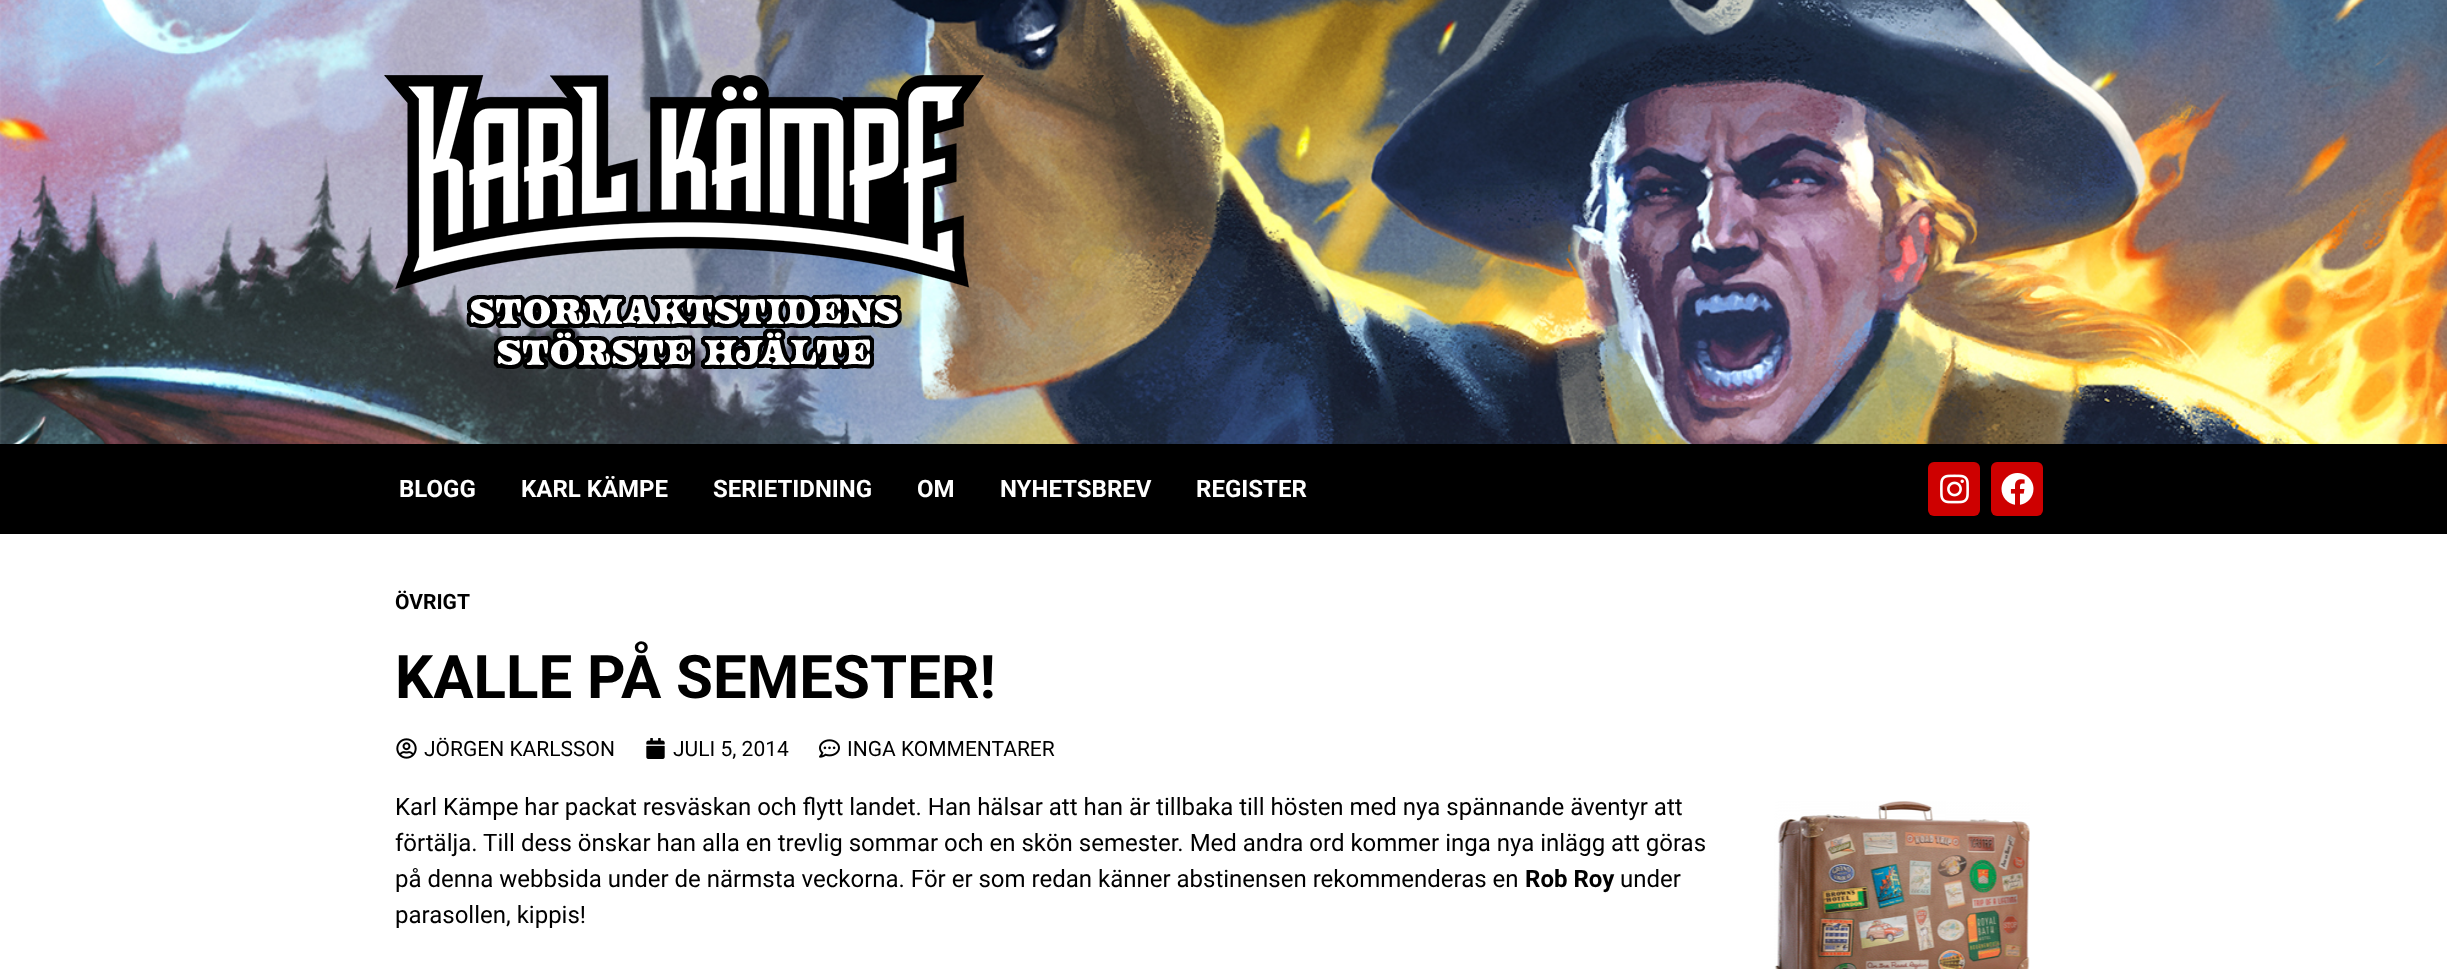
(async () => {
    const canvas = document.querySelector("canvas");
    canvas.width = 2447;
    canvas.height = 969;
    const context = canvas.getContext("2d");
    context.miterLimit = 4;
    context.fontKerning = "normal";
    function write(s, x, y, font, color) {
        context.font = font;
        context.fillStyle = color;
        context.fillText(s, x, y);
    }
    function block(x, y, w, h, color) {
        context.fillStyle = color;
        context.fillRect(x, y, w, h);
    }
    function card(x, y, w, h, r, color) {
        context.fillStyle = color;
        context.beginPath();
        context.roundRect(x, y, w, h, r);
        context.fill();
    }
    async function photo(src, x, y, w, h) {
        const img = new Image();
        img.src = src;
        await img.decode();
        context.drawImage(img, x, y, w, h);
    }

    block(0, 0, 2447, 969, "rgb(255, 255, 255)");
    await photo("media/1.png", 0, 0, 2447, 444);
    await photo("media/2.png", 384, 75, 600, 294);
    block(0, 444, 2447, 90, "rgb(0, 0, 0)");
    write("BLOGG", 399, 497, "bold 24px Roboto", "rgb(255, 255, 255)");
    write("KARL KÄMPE", 521, 497, "bold 24px Roboto", "rgb(255, 255, 255)");
    write("SERIETIDNING", 713, 497, "bold 24px Roboto", "rgb(255, 255, 255)");
    write("OM", 917, 497, "bold 24px Roboto", "rgb(255, 255, 255)");
    write("NYHETSBREV", 1000, 497, "bold 24px Roboto", "rgb(255, 255, 255)");
    write("REGISTER", 1196, 497, "bold 24px Roboto", "rgb(255, 255, 255)");
    card(1928, 462, 52, 54, 6, "rgb(206, 0, 0)");
    await photo("media/3.png", 1940, 474, 29, 30);
    card(1991, 462, 52, 54, 6, "rgb(206, 0, 0)");
    await photo("media/4.png", 2001, 473, 33, 32);
    write("ÖVRIGT", 395, 609, "bold 21px Roboto", "rgb(0, 0, 0)");
    write("KALLE PÅ SEMESTER!", 395, 698, "bold 60px Roboto", "rgb(0, 0, 0)");
    await photo("media/5.png", 396, 738, 21, 21);
    write("JÖRGEN KARLSSON", 424, 756, "21px Roboto", "rgb(0, 0, 0)");
    await photo("media/6.png", 646, 738, 19, 21);
    write("JULI 5, 2014", 673, 756, "21px Roboto", "rgb(0, 0, 0)");
    await photo("media/7.png", 819, 739, 21, 19);
    write("INGA KOMMENTARER", 847, 756, "21px Roboto", "rgb(0, 0, 0)");
    write("Karl Kämpe har packat resväskan och flytt landet. Han hälsar att han är tillbaka till hösten med nya spännande äventyr att", 395, 815, "24px Roboto", "rgb(0, 0, 0)");
    await photo("media/8.png", 1774, 801, 256, 168);
    write("förtälja. Till dess önskar han alla en trevlig sommar och en skön semester. Med andra ord kommer inga nya inlägg att göras", 395, 851, "24px Roboto", "rgb(0, 0, 0)");
    write("på denna webbsida under de närmsta veckorna. För er som redan känner abstinensen rekommenderas en", 395, 887, "24px Roboto", "rgb(0, 0, 0)");
    write("Rob Roy", 1525, 887, "bold 24px Roboto", "rgb(0, 0, 0)");
    write("under", 1620, 887, "24px Roboto", "rgb(0, 0, 0)");
    write("parasollen, kippis!", 395, 923, "24px Roboto", "rgb(0, 0, 0)");
})();
